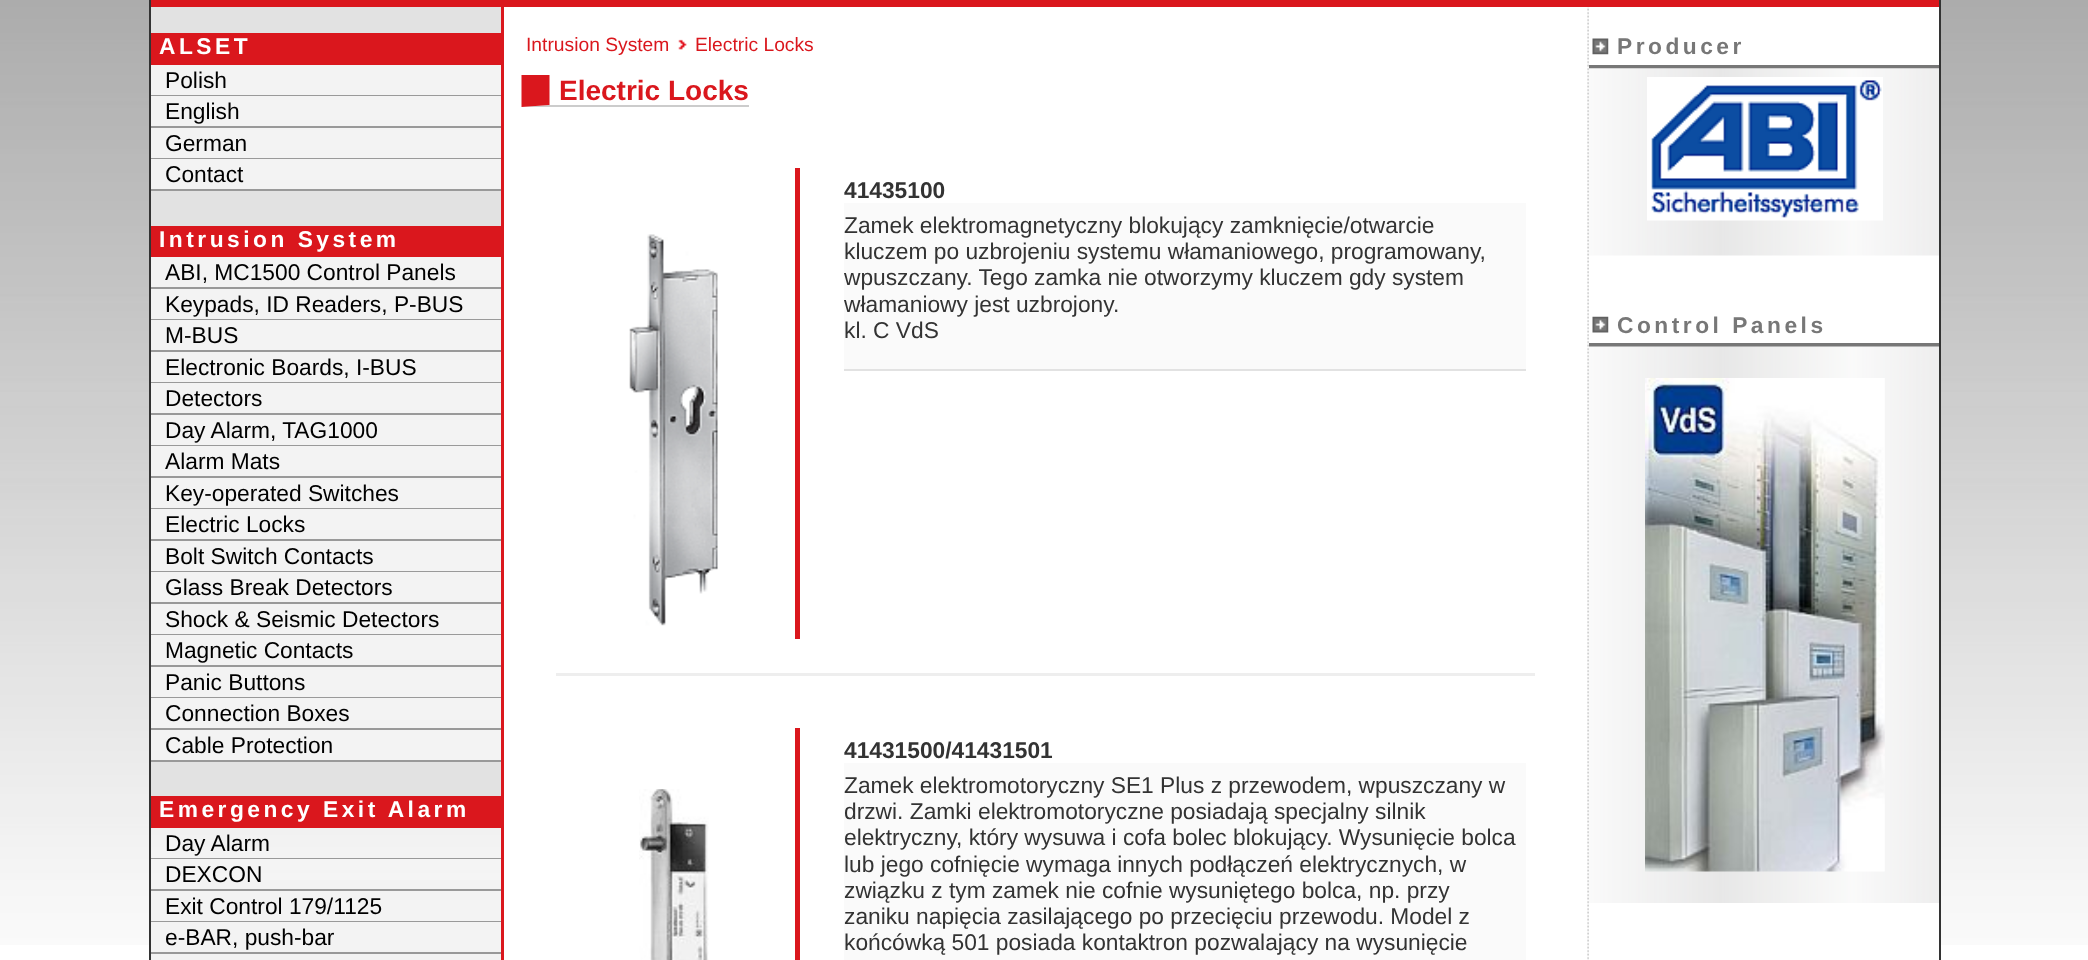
(async () => {
    const canvas = document.querySelector("canvas");
    canvas.width = 2088;
    canvas.height = 960;
    const context = canvas.getContext("2d");
    context.miterLimit = 4;
    context.fontKerning = "normal";
    function write(s, x, y, font, color) {
        context.font = font;
        context.fillStyle = color;
        context.fillText(s, x, y);
    }
    function block(x, y, w, h, color) {
        context.fillStyle = color;
        context.fillRect(x, y, w, h);
    }
    async function photo(src, x, y, w, h) {
        const img = new Image();
        img.src = src;
        await img.decode();
        context.drawImage(img, x, y, w, h);
    }

    block(0, 0, 2088, 960, "rgb(255, 255, 255)");
    await photo("media/1.png", 0, 0, 2088, 945);
    block(1939, 0, 2, 960, "rgb(51, 51, 51)");
    block(149, 0, 2, 960, "rgb(51, 51, 51)");
    block(504, 7, 1435, 938, "rgb(255, 255, 255)");
    block(151, 0, 1788, 7, "rgb(218, 23, 29)");
    block(151, 7, 350, 789, "rgb(226, 226, 226)");
    block(151, 33, 350, 32, "rgb(218, 23, 29)");
    context.letterSpacing = "3.5px";
    write("ALSET", 159, 54, "bold 22.75px Liberation Sans", "rgb(255, 255, 255)");
    block(151, 65, 350, 30, "rgb(243, 243, 243)");
    block(151, 95, 350, 1, "rgb(153, 153, 153)");
    context.letterSpacing = "0px";
    write("Polish", 165, 88, "22.75px Liberation Sans", "rgb(0, 0, 0)");
    block(151, 96, 350, 30, "rgb(243, 243, 243)");
    block(151, 126, 350, 2, "rgb(153, 153, 153)");
    write("English", 165, 119, "22.75px Liberation Sans", "rgb(0, 0, 0)");
    block(151, 128, 350, 30, "rgb(243, 243, 243)");
    block(151, 158, 350, 1, "rgb(153, 153, 153)");
    write("German", 165, 151, "22.75px Liberation Sans", "rgb(0, 0, 0)");
    block(151, 159, 350, 30, "rgb(243, 243, 243)");
    block(151, 189, 350, 2, "rgb(153, 153, 153)");
    write("Contact", 165, 182, "22.75px Liberation Sans", "rgb(0, 0, 0)");
    block(151, 226, 350, 31, "rgb(218, 23, 29)");
    context.letterSpacing = "3.5px";
    write("Intrusion System", 159, 247, "bold 22.75px Liberation Sans", "rgb(255, 255, 255)");
    block(151, 257, 350, 30, "rgb(243, 243, 243)");
    block(151, 287, 350, 2, "rgb(153, 153, 153)");
    context.letterSpacing = "0px";
    write("ABI, MC1500 Control Panels", 165, 280, "22.75px Liberation Sans", "rgb(0, 0, 0)");
    block(151, 289, 350, 30, "rgb(243, 243, 243)");
    block(151, 319, 350, 1, "rgb(153, 153, 153)");
    write("Keypads, ID Readers, P-BUS", 165, 312, "22.75px Liberation Sans", "rgb(0, 0, 0)");
    block(151, 320, 350, 30, "rgb(243, 243, 243)");
    block(151, 350, 350, 2, "rgb(153, 153, 153)");
    write("M-BUS", 165, 343, "22.75px Liberation Sans", "rgb(0, 0, 0)");
    block(151, 352, 350, 30, "rgb(243, 243, 243)");
    block(151, 382, 350, 1, "rgb(153, 153, 153)");
    write("Electronic Boards, I-BUS", 165, 375, "22.75px Liberation Sans", "rgb(0, 0, 0)");
    block(151, 383, 350, 30, "rgb(243, 243, 243)");
    block(151, 413, 350, 2, "rgb(153, 153, 153)");
    write("Detectors", 165, 406, "22.75px Liberation Sans", "rgb(0, 0, 0)");
    block(151, 415, 350, 30, "rgb(243, 243, 243)");
    block(151, 445, 350, 1, "rgb(153, 153, 153)");
    write("Day Alarm, TAG1000", 165, 438, "22.75px Liberation Sans", "rgb(0, 0, 0)");
    block(151, 446, 350, 30, "rgb(243, 243, 243)");
    block(151, 476, 350, 2, "rgb(153, 153, 153)");
    write("Alarm Mats", 165, 469, "22.75px Liberation Sans", "rgb(0, 0, 0)");
    block(151, 478, 350, 30, "rgb(243, 243, 243)");
    block(151, 508, 350, 1, "rgb(153, 153, 153)");
    write("Key-operated Switches", 165, 501, "22.75px Liberation Sans", "rgb(0, 0, 0)");
    block(151, 509, 350, 30, "rgb(243, 243, 243)");
    block(151, 539, 350, 2, "rgb(153, 153, 153)");
    write("Electric Locks", 165, 532, "22.75px Liberation Sans", "rgb(0, 0, 0)");
    block(151, 541, 350, 30, "rgb(243, 243, 243)");
    block(151, 571, 350, 1, "rgb(153, 153, 153)");
    write("Bolt Switch Contacts", 165, 564, "22.75px Liberation Sans", "rgb(0, 0, 0)");
    block(151, 572, 350, 30, "rgb(243, 243, 243)");
    block(151, 602, 350, 2, "rgb(153, 153, 153)");
    write("Glass Break Detectors", 165, 595, "22.75px Liberation Sans", "rgb(0, 0, 0)");
    block(151, 604, 350, 30, "rgb(243, 243, 243)");
    block(151, 634, 350, 1, "rgb(153, 153, 153)");
    write("Shock & Seismic Detectors", 165, 627, "22.75px Liberation Sans", "rgb(0, 0, 0)");
    block(151, 635, 350, 30, "rgb(243, 243, 243)");
    block(151, 665, 350, 2, "rgb(153, 153, 153)");
    write("Magnetic Contacts", 165, 658, "22.75px Liberation Sans", "rgb(0, 0, 0)");
    block(151, 667, 350, 30, "rgb(243, 243, 243)");
    block(151, 697, 350, 1, "rgb(153, 153, 153)");
    write("Panic Buttons", 165, 690, "22.75px Liberation Sans", "rgb(0, 0, 0)");
    block(151, 698, 350, 30, "rgb(243, 243, 243)");
    block(151, 728, 350, 2, "rgb(153, 153, 153)");
    write("Connection Boxes", 165, 721, "22.75px Liberation Sans", "rgb(0, 0, 0)");
    block(151, 730, 350, 30, "rgb(243, 243, 243)");
    block(151, 760, 350, 2, "rgb(153, 153, 153)");
    write("Cable Protection", 165, 753, "22.75px Liberation Sans", "rgb(0, 0, 0)");
    block(151, 796, 350, 32, "rgb(218, 23, 29)");
    context.letterSpacing = "3.5px";
    write("Emergency Exit Alarm", 159, 817, "bold 22.75px Liberation Sans", "rgb(255, 255, 255)");
    block(151, 858, 350, 1, "rgb(153, 153, 153)");
    context.letterSpacing = "0px";
    write("Day Alarm", 165, 851, "22.75px Liberation Sans", "rgb(0, 0, 0)");
    block(151, 880, 350, 9, "rgb(243, 243, 243)");
    block(151, 889, 350, 2, "rgb(153, 153, 153)");
    write("DEXCON", 165, 882, "22.75px Liberation Sans", "rgb(0, 0, 0)");
    block(151, 891, 350, 30, "rgb(243, 243, 243)");
    block(151, 921, 350, 1, "rgb(153, 153, 153)");
    write("Exit Control 179/1125", 165, 914, "22.75px Liberation Sans", "rgb(0, 0, 0)");
    block(151, 922, 350, 30, "rgb(243, 243, 243)");
    block(151, 952, 350, 2, "rgb(153, 153, 153)");
    write("e-BAR, push-bar", 165, 945, "22.75px Liberation Sans", "rgb(0, 0, 0)");
    block(151, 954, 350, 6, "rgb(243, 243, 243)");
    block(501, 7, 3, 953, "rgb(218, 23, 29)");
    write("Intrusion System", 526, 51, "19.25px Liberation Sans", "rgb(218, 23, 29)");
    await photo("media/2.png", 678, 39, 9, 11);
    write("Electric Locks", 695, 51, "19.25px Liberation Sans", "rgb(218, 23, 29)");
    write("Electric Locks", 559, 100, "bold 28px Liberation Sans", "rgb(218, 23, 29)");
    context.fillStyle = "rgb(204, 204, 204)";
    context.beginPath();
    context.moveTo(749, 107);
    context.lineTo(522, 107);
    context.lineTo(550, 105);
    context.lineTo(749, 105);
    context.closePath();
    context.fill();
    context.fillStyle = "rgb(218, 23, 29)";
    context.beginPath();
    context.moveTo(521.5, 107);
    context.lineTo(521.5, 75);
    context.lineTo(549.5, 75);
    context.lineTo(549.5, 105);
    context.closePath();
    context.fill();
    block(795, 168, 5, 471, "rgb(218, 23, 29)");
    await photo("media/3.png", 629, 234, 89, 392);
    write("41435100", 844, 198, "bold 22.75px Liberation Sans", "rgb(51, 51, 51)");
    block(844, 203, 682, 166, "rgb(250, 250, 250)");
    block(844, 369, 682, 2, "rgb(226, 226, 226)");
    write("Zamek elektromagnetyczny blokujący zamknięcie/otwarcie", 844, 233, "22.75px Liberation Sans", "rgb(51, 51, 51)");
    write("kluczem po uzbrojeniu systemu włamaniowego, programowany,", 844, 259, "22.75px Liberation Sans", "rgb(51, 51, 51)");
    write("wpuszczany. Tego zamka nie otworzymy kluczem gdy system", 844, 285, "22.75px Liberation Sans", "rgb(51, 51, 51)");
    write("włamaniowy jest uzbrojony.", 844, 312, "22.75px Liberation Sans", "rgb(51, 51, 51)");
    write("kl. C VdS", 844, 338, "22.75px Liberation Sans", "rgb(51, 51, 51)");
    block(556, 673, 979, 3, "rgb(238, 238, 238)");
    block(795, 728, 5, 232, "rgb(218, 23, 29)");
    await photo("media/4.png", 639, 789, 70, 171);
    write("41431500/41431501", 844, 758, "bold 22.75px Liberation Sans", "rgb(51, 51, 51)");
    block(844, 763, 682, 197, "rgb(250, 250, 250)");
    write("Zamek elektromotoryczny SE1 Plus z przewodem, wpuszczany w", 844, 793, "22.75px Liberation Sans", "rgb(51, 51, 51)");
    write("drzwi. Zamki elektromotoryczne posiadają specjalny silnik", 844, 819, "22.75px Liberation Sans", "rgb(51, 51, 51)");
    write("elektryczny, który wysuwa i cofa bolec blokujący. Wysunięcie bolca", 844, 845, "22.75px Liberation Sans", "rgb(51, 51, 51)");
    write("lub jego cofnięcie wymaga innych podłączeń elektrycznych, w", 844, 872, "22.75px Liberation Sans", "rgb(51, 51, 51)");
    write("związku z tym zamek nie cofnie wysuniętego bolca, np. przy", 844, 898, "22.75px Liberation Sans", "rgb(51, 51, 51)");
    write("zaniku napięcia zasilającego po przecięciu przewodu. Model z", 844, 924, "22.75px Liberation Sans", "rgb(51, 51, 51)");
    write("końcówką 501 posiada kontaktron pozwalający na wysunięcie", 844, 950, "22.75px Liberation Sans", "rgb(51, 51, 51)");
    await photo("media/5.png", 1587, 7, 2, 953);
    await photo("media/6.png", 1592, 38, 17, 17);
    block(1589, 65, 350, 4, "rgb(119, 119, 119)");
    context.letterSpacing = "3.5px";
    write("Producer", 1617, 54, "bold 22.75px Liberation Sans", "rgb(119, 119, 119)");
    await photo("media/7.png", 1589, 68, 350, 188);
    await photo("media/8.png", 1647, 77, 236, 144);
    await photo("media/9.png", 1592, 316, 17, 17);
    block(1589, 343, 350, 4, "rgb(119, 119, 119)");
    write("Control Panels", 1617, 333, "bold 22.75px Liberation Sans", "rgb(119, 119, 119)");
    await photo("media/10.png", 1589, 346, 350, 557);
    await photo("media/11.png", 1645, 378, 240, 494);
})();
